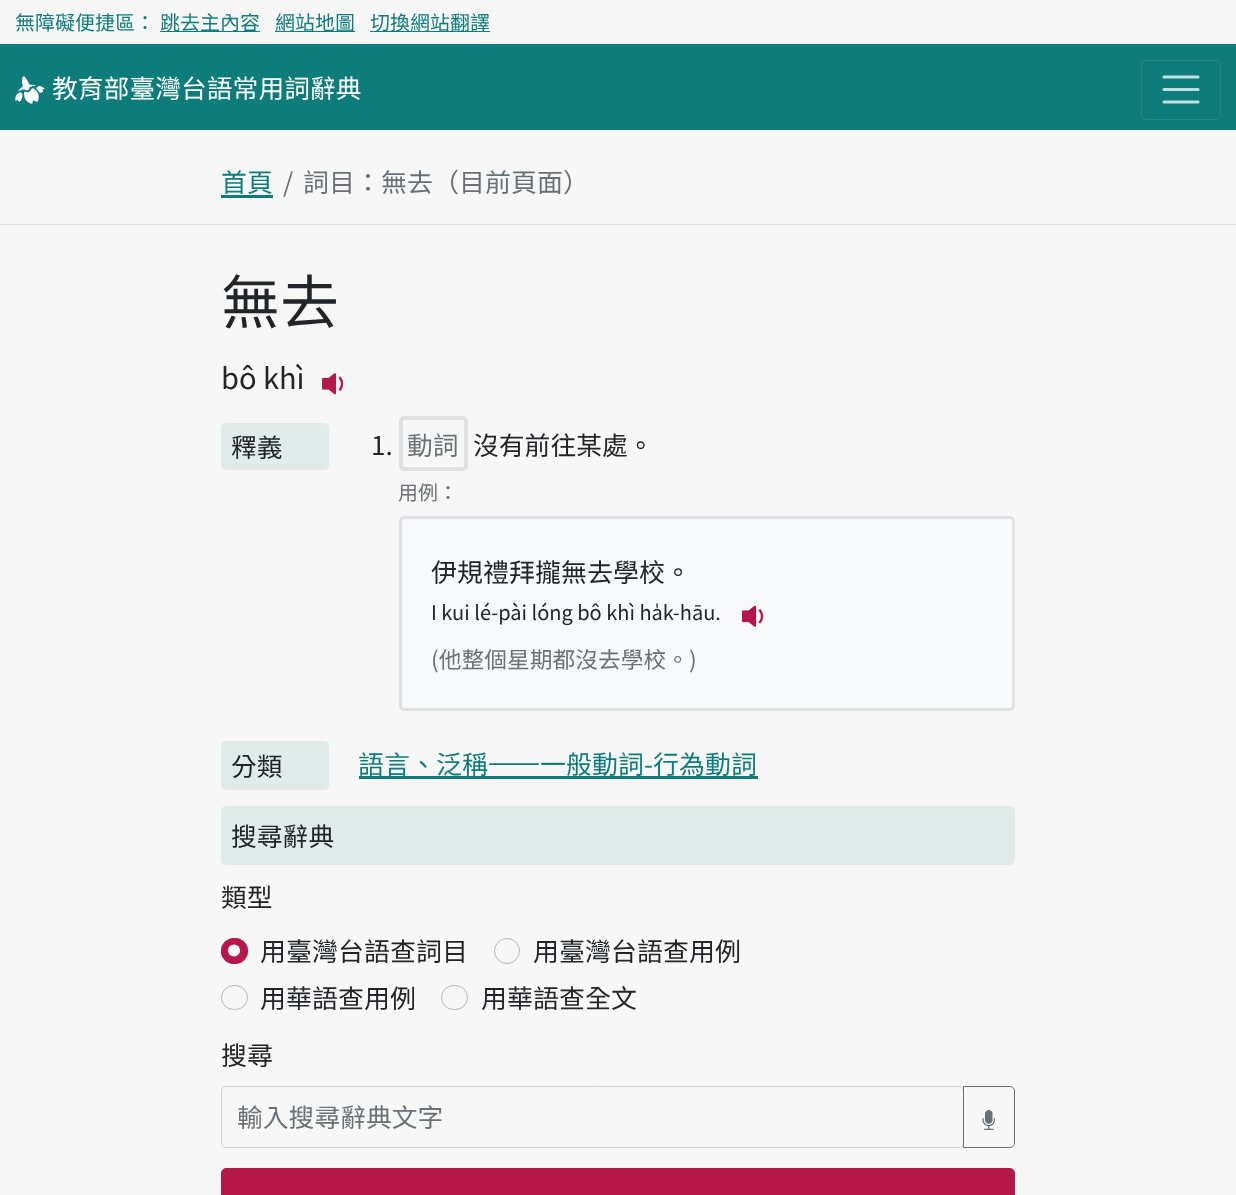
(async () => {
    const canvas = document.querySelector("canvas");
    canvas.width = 1236;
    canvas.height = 1195;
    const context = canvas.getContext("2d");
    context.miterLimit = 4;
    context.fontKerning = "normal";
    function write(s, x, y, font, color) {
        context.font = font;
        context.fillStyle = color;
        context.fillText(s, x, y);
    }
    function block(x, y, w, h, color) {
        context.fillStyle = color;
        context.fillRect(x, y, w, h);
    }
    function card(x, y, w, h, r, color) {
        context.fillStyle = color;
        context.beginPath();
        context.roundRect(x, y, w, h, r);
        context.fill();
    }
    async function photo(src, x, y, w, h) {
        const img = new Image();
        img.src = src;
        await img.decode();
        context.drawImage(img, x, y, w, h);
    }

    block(0, 0, 1236, 1195, "rgb(247, 247, 247)");
    write("無障礙便捷區：", 15, 30, "20px 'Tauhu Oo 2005'", "rgb(14, 124, 123)");
    block(160, 31, 100, 1, "rgb(14, 124, 123)");
    write("跳去主內容", 160, 30, "20px 'Tauhu Oo 2005'", "rgb(14, 124, 123)");
    block(275, 31, 80, 1, "rgb(14, 124, 123)");
    write("網站地圖", 275, 30, "20px 'Tauhu Oo 2005'", "rgb(14, 124, 123)");
    block(370, 31, 120, 1, "rgb(14, 124, 123)");
    write("切換網站翻譯", 370, 30, "20px 'Tauhu Oo 2005'", "rgb(14, 124, 123)");
    block(0, 44, 1236, 86, "rgb(14, 124, 123)");
    await photo("media/1.png", 15, 76, 30, 28);
    write("教育部臺灣台語常用詞辭典", 52, 98, "25.8px 'Tauhu Oo 2005'", "rgb(255, 255, 255)");
    context.beginPath();
    context.roundRect(1141.5, 60.5, 79, 59, 4.5);
    context.strokeStyle = "rgb(38, 137, 136)";
    context.stroke();
    context.beginPath();
    context.moveTo(1164, 77);
    context.lineTo(1198, 77);
    context.moveTo(1164, 89.5);
    context.lineTo(1198, 89.5);
    context.moveTo(1164, 102);
    context.lineTo(1198, 102);
    context.strokeStyle = "rgb(195, 222, 222)";
    context.lineWidth = 3.1;
    context.lineCap = "round";
    context.stroke();
    block(0, 224, 1236, 1, "rgb(222, 226, 230)");
    write("首頁", 221, 192, "26px 'Tauhu Oo 2005'", "rgb(14, 124, 123)");
    block(221, 195, 52, 3, "rgb(14, 124, 123)");
    write("/", 283, 192, "26px 'Tauhu Oo 2005'", "rgb(104, 113, 120)");
    write("詞目：無去（目前頁面）", 303, 192, "26px 'Tauhu Oo 2005'", "rgb(104, 113, 120)");
    write("無去", 221, 324, "59px 'Tauhu Oo 2005'", "rgb(33, 37, 41)");
    write("bô khì", 221, 389, "29px 'Tauhu Oo 2005'", "rgb(33, 37, 41)");
    await photo("media/2.png", 322, 373, 22, 22);
    card(221, 423, 108, 47, 5, "rgb(224, 235, 235)");
    write("釋義", 231, 457, "25.8px 'Tauhu Oo 2005'", "rgb(33, 37, 41)");
    write("1.", 371, 455, "26px 'Tauhu Oo 2005'", "rgb(33, 37, 41)");
    context.beginPath();
    context.roundRect(401, 418, 65, 51, 3);
    context.strokeStyle = "rgb(222, 226, 230)";
    context.lineWidth = 4;
    context.stroke();
    write("動詞", 407, 455, "25.8px 'Tauhu Oo 2005'", "rgb(104, 113, 120)");
    write("沒有前往某處。", 473, 455, "25.8px 'Tauhu Oo 2005'", "rgb(33, 37, 41)");
    write("用例：", 398, 500, "20px 'Tauhu Oo 2005'", "rgb(104, 113, 120)");
    context.fillStyle = "rgb(248, 249, 250)";
    context.beginPath();
    context.roundRect(400.5, 517.5, 613, 192, 3.5);
    context.fill();
    context.lineWidth = 3;
    context.stroke();
    write("伊規禮拜攏無去學校。", 431, 582, "26px 'Tauhu Oo 2005'", "rgb(33, 37, 41)");
    write("I kui lé-pài lóng bô khì ha̍k-hāu.", 431, 620, "20px 'Tauhu Oo 2005'", "rgb(33, 37, 41)");
    await photo("media/3.png", 742, 605, 22, 22);
    write("(他整個星期都沒去學校。)", 431, 668, "22.75px 'Tauhu Oo 2005'", "rgb(104, 113, 120)");
    card(221, 741, 108, 49, 5, "rgb(224, 235, 235)");
    write("分類", 231, 776, "25.8px 'Tauhu Oo 2005'", "rgb(33, 37, 41)");
    block(359, 776, 399, 3, "rgb(14, 124, 123)");
    write("語言、泛稱——一般動詞-行為動詞", 358, 774, "26px 'Tauhu Oo 2005'", "rgb(14, 124, 123)");
    card(221, 806, 794, 59, 5, "rgb(224, 235, 235)");
    write("搜尋辭典", 231, 846, "25.8px 'Tauhu Oo 2005'", "rgb(33, 37, 41)");
    write("類型", 221, 907, "25.8px 'Tauhu Oo 2005'", "rgb(33, 37, 41)");
    card(221, 938, 27, 26, 13, "rgb(182, 23, 75)");
    context.fillStyle = "rgb(255, 255, 255)";
    context.beginPath();
    context.arc(234, 950.5, 6, 0, Math.PI * 2);
    context.fill();
    context.beginPath();
    context.roundRect(221.5, 938.5, 26, 25, 12.5);
    context.strokeStyle = "rgb(182, 23, 75)";
    context.lineWidth = 1;
    context.stroke();
    write("用臺灣台語查詞目", 260, 961, "26px 'Tauhu Oo 2005'", "rgb(33, 37, 41)");
    context.beginPath();
    context.arc(507, 951, 12.5, 0, Math.PI * 2);
    context.strokeStyle = "rgb(185, 185, 185)";
    context.stroke();
    write("用臺灣台語查用例", 533, 961, "26px 'Tauhu Oo 2005'", "rgb(33, 37, 41)");
    context.beginPath();
    context.roundRect(221.5, 985.5, 26, 24, 12);
    context.stroke();
    write("用華語查用例", 260, 1008, "26px 'Tauhu Oo 2005'", "rgb(33, 37, 41)");
    context.beginPath();
    context.roundRect(441.5, 985.5, 26, 24, 12);
    context.stroke();
    write("用華語查全文", 481, 1008, "26px 'Tauhu Oo 2005'", "rgb(33, 37, 41)");
    write("搜尋", 221, 1065, "26px 'Tauhu Oo 2005'", "rgb(33, 37, 41)");
    context.beginPath();
    context.roundRect(221.5, 1086.5, 742, 61, 4.5);
    context.strokeStyle = "rgb(206, 212, 218)";
    context.stroke();
    write("輸入搜尋辭典文字", 237, 1127, "25.8px 'Tauhu Oo 2005'", "rgb(104, 113, 120)");
    context.beginPath();
    context.roundRect(963.5, 1086.5, 51, 61, [0, 4.5, 4.5, 0]);
    context.strokeStyle = "rgb(104, 113, 120)";
    context.stroke();
    await photo("media/4.png", 982, 1110, 13, 20);
    context.fillStyle = "rgb(182, 23, 75)";
    context.beginPath();
    context.roundRect(221.5, 1168.5, 793, 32, 4.5);
    context.fill();
    context.strokeStyle = "rgb(182, 23, 75)";
    context.stroke();
})();
